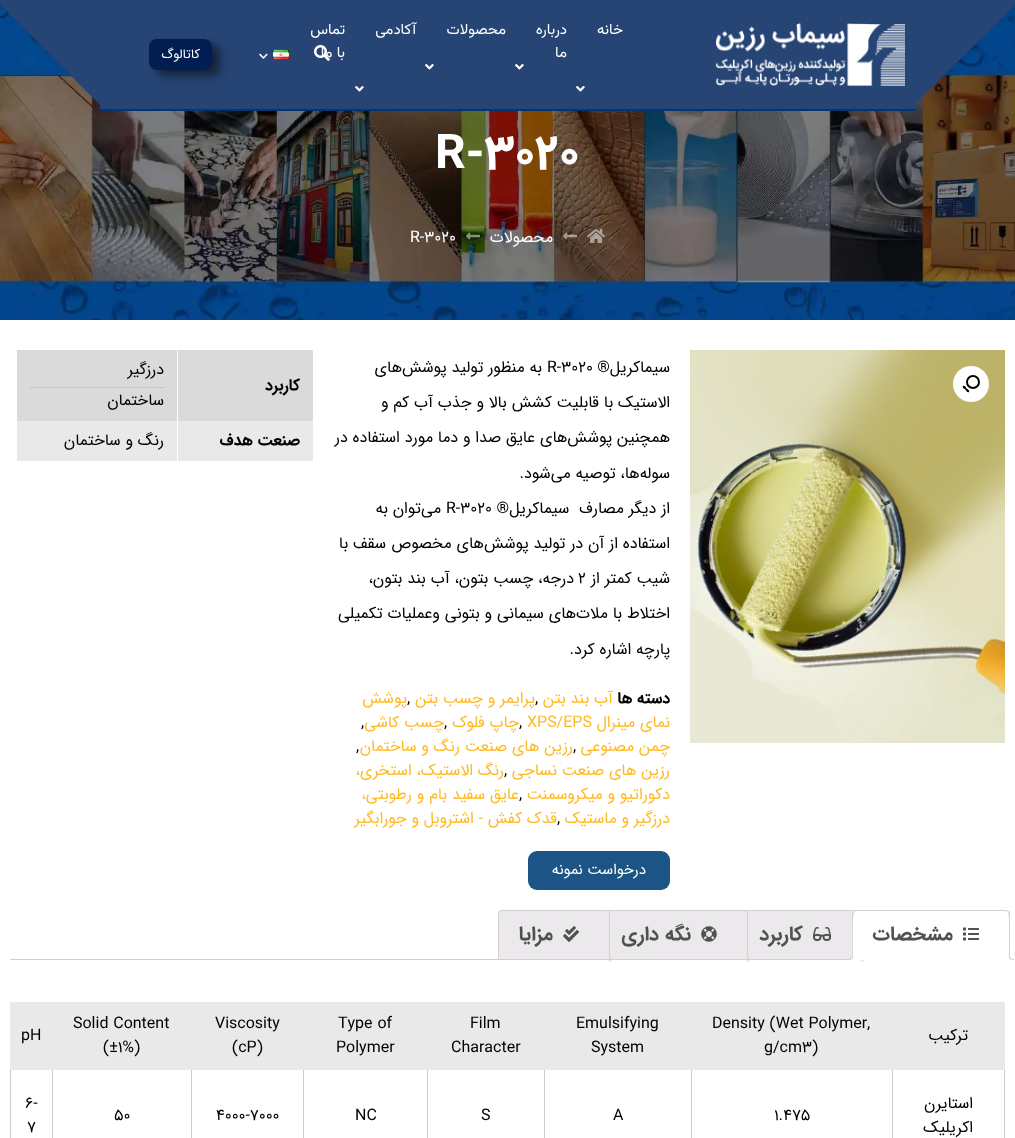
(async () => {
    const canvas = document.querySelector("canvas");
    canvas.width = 1015;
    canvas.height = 1138;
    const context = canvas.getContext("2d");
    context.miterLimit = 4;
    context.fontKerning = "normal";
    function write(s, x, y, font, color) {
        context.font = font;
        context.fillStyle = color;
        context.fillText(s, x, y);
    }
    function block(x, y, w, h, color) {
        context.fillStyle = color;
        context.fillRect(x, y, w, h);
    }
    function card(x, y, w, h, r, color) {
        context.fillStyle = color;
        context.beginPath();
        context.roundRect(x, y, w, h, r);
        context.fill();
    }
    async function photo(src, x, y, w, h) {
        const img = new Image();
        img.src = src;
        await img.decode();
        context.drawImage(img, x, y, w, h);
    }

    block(0, 0, 1015, 1138, "rgb(255, 255, 255)");
    await photo("media/6.png", 0, 4, 1015, 316);
    context.fillStyle = "rgb(38, 69, 117)";
    context.beginPath();
    context.moveTo(894, 0);
    context.lineTo(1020, 0);
    context.lineTo(910, 109);
    context.lineTo(786, 109);
    context.closePath();
    context.fill();
    context.beginPath();
    context.moveTo(-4, 0);
    context.lineTo(120, 0);
    context.lineTo(230, 109);
    context.lineTo(104, 109);
    context.closePath();
    context.fill();
    block(100, 0, 815, 109, "rgb(38, 69, 117)");
    block(100, 109, 815, 2, "rgb(0, 54, 114)");
    await photo("media/1.png", 716, 23, 189, 63);
    context.direction = "rtl";
    write("خانه", 623, 34, "15px Vazirmatn", "rgb(255, 255, 255)");
    write("درباره", 567, 34, "15px Vazirmatn", "rgb(255, 255, 255)");
    write("ما", 567, 57, "15px Vazirmatn", "rgb(255, 255, 255)");
    await photo("media/2.png", 576, 86, 9, 6);
    write("محصولات", 506, 34, "15px Vazirmatn", "rgb(255, 255, 255)");
    await photo("media/2.png", 515, 64, 9, 6);
    write("آکادمی", 416, 34, "15px Vazirmatn", "rgb(255, 255, 255)");
    await photo("media/2.png", 425, 64, 9, 6);
    write("تماس", 345, 34, "15px Vazirmatn", "rgb(255, 255, 255)");
    write("با ما", 345, 57, "15px Vazirmatn", "rgb(255, 255, 255)");
    await photo("media/2.png", 355, 86, 9, 6);
    await photo("media/3.png", 314, 45, 16, 16);
    await photo("media/4.png", 273, 49, 16, 11);
    await photo("media/5.png", 259, 53, 9, 6);
    context.fillStyle = "rgba(0, 0, 0, 0.5)";
    context.filter = "blur(5px)";
    context.beginPath();
    context.roundRect(157, 45, 63, 31, 8);
    context.fill();
    context.filter = "none";
    card(149, 39, 63, 31, 8, "rgb(1, 29, 82)");
    write("کاتالوگ", 200, 58, "13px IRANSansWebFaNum", "rgb(255, 255, 255)");
    context.direction = "ltr";
    write("R-3020", 435, 168, "bold 48px IRANSansWebFaNum", "rgb(255, 255, 255)");
    await photo("media/7.png", 587, 229, 18, 14);
    await photo("media/8.png", 563, 232, 14, 8);
    context.direction = "rtl";
    write("محصولات", 553, 242, "16px IRANSansWebFaNum", "rgb(255, 255, 255)");
    await photo("media/9.png", 466, 232, 14, 8);
    context.direction = "ltr";
    write("R-3020", 410, 242, "16px IRANSansWebFaNum", "rgb(255, 255, 255)");
    await photo("media/10.png", 690, 350, 315, 393);
    context.beginPath();
    context.arc(971, 384, 18, 0, Math.PI * 2);
    context.fill();
    context.beginPath();
    context.arc(973, 382, 6, 0, Math.PI * 2);
    context.strokeStyle = "rgb(0, 0, 0)";
    context.lineWidth = 2;
    context.stroke();
    context.fillStyle = "rgb(0, 0, 0)";
    context.beginPath();
    context.moveTo(963, 386);
    context.bezierCurveTo(964.5, 385, 966, 387.5, 966.5, 388.5);
    context.bezierCurveTo(967.5, 389, 970, 390.5, 969, 392);
    context.bezierCurveTo(967.5, 393, 966, 390.5, 965.5, 389.5);
    context.bezierCurveTo(964.5, 389, 962, 387.5, 963, 386);
    context.closePath();
    context.fill();
    context.direction = "rtl";
    write("سیماکریل®", 670, 372, "16px IRANSansWebFaNum", "rgb(0, 0, 0)");
    context.direction = "ltr";
    write("R-3020", 547, 372, "16px IRANSansWebFaNum", "rgb(0, 0, 0)");
    context.direction = "rtl";
    write("به منظور تولید پوشش‌های", 542, 372, "16px IRANSansWebFaNum", "rgb(0, 0, 0)");
    write("الاستیک با قابلیت کشش بالا و جذب آب کم و", 670, 407, "16px IRANSansWebFaNum", "rgb(0, 0, 0)");
    write("همچنین پوشش‌های عایق صدا و دما مورد استفاده در", 670, 442, "16px IRANSansWebFaNum", "rgb(0, 0, 0)");
    write("سوله‌ها، توصیه می‌شود.", 670, 478, "16px IRANSansWebFaNum", "rgb(0, 0, 0)");
    write("از دیگر مصارف  سیماکریل®", 670, 513, "16px IRANSansWebFaNum", "rgb(0, 0, 0)");
    context.direction = "ltr";
    write("R-3020", 446, 513, "16px IRANSansWebFaNum", "rgb(0, 0, 0)");
    context.direction = "rtl";
    write("می‌توان به", 441, 513, "16px IRANSansWebFaNum", "rgb(0, 0, 0)");
    write("استفاده از آن در تولید پوشش‌های مخصوص سقف با", 670, 548, "16px IRANSansWebFaNum", "rgb(0, 0, 0)");
    write("شیب کمتر از", 670, 583, "16px IRANSansWebFaNum", "rgb(0, 0, 0)");
    context.direction = "ltr";
    write("2", 578, 583, "16px IRANSansWebFaNum", "rgb(0, 0, 0)");
    context.direction = "rtl";
    write("درجه، چسب بتون، آب بند بتون،", 574, 583, "16px IRANSansWebFaNum", "rgb(0, 0, 0)");
    write("اختلاط با ملات‌های سیمانی و بتونی وعملیات تکمیلی", 670, 618, "16px IRANSansWebFaNum", "rgb(0, 0, 0)");
    write("پارچه اشاره کرد.", 670, 654, "16px IRANSansWebFaNum", "rgb(0, 0, 0)");
    write("دسته ها", 670, 703, "bold 16px IRANSansWebFaNum", "rgb(0, 0, 0)");
    write("آب بند بتن", 613, 703, "16px IRANSansWebFaNum", "rgb(255, 185, 35)");
    context.direction = "ltr";
    write(",", 535, 703, "16px IRANSansWebFaNum", "rgb(0, 0, 0)");
    context.direction = "rtl";
    write("پرایمر و چسب بتن", 535, 703, "16px IRANSansWebFaNum", "rgb(255, 185, 35)");
    context.direction = "ltr";
    write(",", 407, 703, "16px IRANSansWebFaNum", "rgb(0, 0, 0)");
    context.direction = "rtl";
    write("پوشش", 407, 703, "16px IRANSansWebFaNum", "rgb(255, 185, 35)");
    write("نمای مینرال", 670, 727, "16px IRANSansWebFaNum", "rgb(255, 185, 35)");
    context.direction = "ltr";
    write("XPS/EPS", 527, 727, "16px IRANSansWebFaNum", "rgb(255, 185, 35)");
    write(",", 519, 727, "16px IRANSansWebFaNum", "rgb(0, 0, 0)");
    context.direction = "rtl";
    write("چاپ فلوک", 519, 727, "16px IRANSansWebFaNum", "rgb(255, 185, 35)");
    context.direction = "ltr";
    write(",", 444, 727, "16px IRANSansWebFaNum", "rgb(0, 0, 0)");
    context.direction = "rtl";
    write("چسب کاشی", 444, 727, "16px IRANSansWebFaNum", "rgb(255, 185, 35)");
    context.direction = "ltr";
    write(",", 361, 727, "16px IRANSansWebFaNum", "rgb(0, 0, 0)");
    context.direction = "rtl";
    write("چمن مصنوعی", 670, 751, "16px IRANSansWebFaNum", "rgb(255, 185, 35)");
    context.direction = "ltr";
    write(",", 573, 751, "16px IRANSansWebFaNum", "rgb(0, 0, 0)");
    context.direction = "rtl";
    write("رزین های صنعت رنگ و ساختمان", 573, 751, "16px IRANSansWebFaNum", "rgb(255, 185, 35)");
    context.direction = "ltr";
    write(",", 356, 751, "16px IRANSansWebFaNum", "rgb(0, 0, 0)");
    context.direction = "rtl";
    write("رزین های صنعت نساجی", 670, 775, "16px IRANSansWebFaNum", "rgb(255, 185, 35)");
    context.direction = "ltr";
    write(",", 504, 775, "16px IRANSansWebFaNum", "rgb(0, 0, 0)");
    context.direction = "rtl";
    write("رنگ الاستیک، استخری،", 504, 775, "16px IRANSansWebFaNum", "rgb(255, 185, 35)");
    write("دکوراتیو و میکروسمنت", 670, 799, "16px IRANSansWebFaNum", "rgb(255, 185, 35)");
    context.direction = "ltr";
    write(",", 519, 799, "16px IRANSansWebFaNum", "rgb(0, 0, 0)");
    context.direction = "rtl";
    write("عایق سفید بام و رطوبتی،", 519, 799, "16px IRANSansWebFaNum", "rgb(255, 185, 35)");
    write("درزگیر و ماستیک", 670, 823, "16px IRANSansWebFaNum", "rgb(255, 185, 35)");
    context.direction = "ltr";
    write(",", 557, 823, "16px IRANSansWebFaNum", "rgb(0, 0, 0)");
    context.direction = "rtl";
    write("قدک کفش - اشتروبل و جورابگیر", 557, 823, "16px IRANSansWebFaNum", "rgb(255, 185, 35)");
    card(528, 851, 142, 39, 9, "rgb(28, 85, 133)");
    write("درخواست نمونه", 646, 874, "15px IRANSansWebFaNum", "rgb(255, 255, 255)");
    block(17, 350, 296, 71, "rgb(218, 218, 218)");
    block(177, 350, 1, 71, "rgb(255, 255, 255)");
    write("کاربرد", 300, 390, "bold 16px IRANSansWebFaNum", "rgb(0, 0, 0)");
    write("درزگیر", 164, 374, "16px IRANSansWebFaNum", "rgb(0, 0, 0)");
    block(30, 387, 134, 1, "rgb(196, 196, 196)");
    write("ساختمان", 164, 405, "16px IRANSansWebFaNum", "rgb(0, 0, 0)");
    block(17, 421, 296, 40, "rgb(233, 233, 233)");
    block(177, 421, 1, 40, "rgb(255, 255, 255)");
    write("صنعت هدف", 300, 445, "bold 16px IRANSansWebFaNum", "rgb(0, 0, 0)");
    write("رنگ و ساختمان", 164, 445, "16px IRANSansWebFaNum", "rgb(0, 0, 0)");
    block(746, 911, 108, 48, "rgb(235, 233, 235)");
    context.strokeStyle = "rgb(211, 206, 210)";
    context.lineWidth = 1;
    context.strokeRect(738.5, 910.5, 123, 49);
    context.beginPath();
    context.moveTo(859, 957);
    context.bezierCurveTo(859, 960.5, 860.5, 962, 864, 962);
    context.lineTo(864, 960);
    context.bezierCurveTo(862.5, 959.5, 861.5, 958.5, 861, 957);
    context.closePath();
    context.fill();
    context.fillStyle = "rgb(255, 255, 255)";
    context.beginPath();
    context.roundRect(852, 910, 158, 50, [4, 4, 0, 0]);
    context.fill();
    context.fillStyle = "rgb(211, 206, 210)";
    context.beginPath();
    context.moveTo(856, 910);
    context.lineTo(853, 911);
    context.lineTo(854, 912);
    context.lineTo(856, 911);
    context.lineTo(1006, 911);
    context.lineTo(1008, 912);
    context.lineTo(1009, 911);
    context.lineTo(1006, 910);
    context.closePath();
    context.fill();
    context.beginPath();
    context.moveTo(1010, 960);
    context.lineTo(1010, 914);
    context.bezierCurveTo(1010, 913, 1010, 912, 1009, 911);
    context.lineTo(1008, 912);
    context.bezierCurveTo(1010, 914, 1009, 953, 1009, 959);
    context.closePath();
    context.fill();
    context.fillStyle = "rgb(255, 255, 255)";
    context.beginPath();
    context.moveTo(1010, 960);
    context.lineTo(1009, 959);
    context.lineTo(853, 959);
    context.lineTo(852, 960);
    context.closePath();
    context.fill();
    context.fillStyle = "rgb(211, 206, 210)";
    context.beginPath();
    context.moveTo(852, 960);
    context.lineTo(853, 959);
    context.bezierCurveTo(853, 953, 852, 914, 854, 912);
    context.lineTo(853, 911);
    context.lineTo(852, 914);
    context.closePath();
    context.fill();
    await photo("media/11.png", 963, 927, 16, 14);
    write("مشخصات", 953, 940, "bold 20px IRANSansWebFaNum", "rgb(81, 81, 81)");
    context.fillStyle = "rgb(255, 255, 255)";
    context.beginPath();
    context.moveTo(1007, 957);
    context.bezierCurveTo(1007, 960.5, 1008.5, 962, 1012, 962);
    context.lineTo(1012, 960);
    context.bezierCurveTo(1010.5, 959.5, 1009.5, 958.5, 1009, 957);
    context.closePath();
    context.fill();
    context.fillStyle = "rgb(211, 206, 210)";
    context.beginPath();
    context.moveTo(1009, 955);
    context.lineTo(1014, 955);
    context.lineTo(1014, 960);
    context.bezierCurveTo(1011.5, 960, 1009, 959, 1009, 956);
    context.closePath();
    context.moveTo(1010, 955);
    context.lineTo(1014, 955);
    context.lineTo(1014, 959);
    context.bezierCurveTo(1012, 959, 1010, 958.5, 1010, 956);
    context.closePath();
    context.fill("evenodd");
    context.fillStyle = "rgb(255, 255, 255)";
    context.beginPath();
    context.moveTo(850, 960);
    context.lineTo(850, 962);
    context.bezierCurveTo(853.5, 962, 855, 960.5, 855, 957);
    context.lineTo(853, 957);
    context.bezierCurveTo(852.5, 958.5, 851.5, 959.5, 850, 960);
    context.closePath();
    context.fill();
    context.fillStyle = "rgb(211, 206, 210)";
    context.beginPath();
    context.moveTo(848, 955);
    context.lineTo(853, 955);
    context.bezierCurveTo(853, 958.5, 851.5, 960, 848, 960);
    context.closePath();
    context.moveTo(848, 955);
    context.lineTo(852, 955);
    context.bezierCurveTo(852, 958, 851, 959, 848, 959);
    context.closePath();
    context.fill("evenodd");
    await photo("media/12.png", 813, 927, 18, 14);
    write("کاربرد", 803, 940, "bold 20px IRANSansWebFaNum", "rgb(81, 81, 81)");
    context.fillStyle = "rgb(235, 233, 235)";
    context.beginPath();
    context.roundRect(600.5, 910.5, 147, 49, [3.5, 3.5, 0, 0]);
    context.fill();
    context.stroke();
    await photo("media/13.png", 701, 926, 16, 16);
    write("نگه داری", 691, 940, "bold 20px IRANSansWebFaNum", "rgb(81, 81, 81)");
    context.fillStyle = "rgb(235, 233, 235)";
    context.beginPath();
    context.moveTo(745, 957);
    context.bezierCurveTo(745, 960.5, 746.5, 962, 750, 962);
    context.lineTo(750, 960);
    context.bezierCurveTo(748.5, 959.5, 747.5, 958.5, 747, 957);
    context.closePath();
    context.fill();
    context.fillStyle = "rgb(211, 206, 210)";
    context.beginPath();
    context.moveTo(747, 955);
    context.lineTo(752, 955);
    context.lineTo(752, 960);
    context.bezierCurveTo(749.5, 960, 747, 959, 747, 956);
    context.closePath();
    context.moveTo(748, 955);
    context.lineTo(752, 955);
    context.lineTo(752, 959);
    context.bezierCurveTo(750, 959, 748, 958.5, 748, 956);
    context.closePath();
    context.fill("evenodd");
    context.fillStyle = "rgb(235, 233, 235)";
    context.beginPath();
    context.roundRect(498.5, 910.5, 111, 49, [3.5, 3.5, 0, 0]);
    context.fill();
    context.stroke();
    await photo("media/14.png", 563, 926, 16, 16);
    write("مزایا", 553, 940, "bold 20px IRANSansWebFaNum", "rgb(81, 81, 81)");
    context.fillStyle = "rgb(235, 233, 235)";
    context.beginPath();
    context.moveTo(607, 957);
    context.bezierCurveTo(607, 960.5, 608.5, 962, 612, 962);
    context.lineTo(612, 960);
    context.bezierCurveTo(610.5, 959.5, 609.5, 958.5, 609, 957);
    context.closePath();
    context.fill();
    context.fillStyle = "rgb(211, 206, 210)";
    context.beginPath();
    context.moveTo(609, 955);
    context.lineTo(614, 955);
    context.lineTo(614, 960);
    context.bezierCurveTo(611.5, 960, 609, 959, 609, 956);
    context.closePath();
    context.moveTo(610, 955);
    context.lineTo(614, 955);
    context.lineTo(614, 959);
    context.bezierCurveTo(612, 959, 610, 958.5, 610, 956);
    context.closePath();
    context.fill("evenodd");
    block(10, 959, 740, 1, "rgb(211, 206, 210)");
    block(10, 1002, 995, 68, "rgb(233, 233, 233)");
    write("ترکیب", 968, 1040, "16px IRANSansWebFaNum", "rgb(0, 0, 0)");
    context.direction = "ltr";
    write("Density (Wet Polymer,", 712, 1028, "16px IRANSansWebFaNum", "rgb(0, 0, 0)");
    write("g/cm3)", 764, 1052, "16px IRANSansWebFaNum", "rgb(0, 0, 0)");
    write("Emulsifying", 576, 1028, "16px IRANSansWebFaNum", "rgb(0, 0, 0)");
    write("System", 591, 1052, "16px IRANSansWebFaNum", "rgb(0, 0, 0)");
    write("Film", 470, 1028, "16px IRANSansWebFaNum", "rgb(0, 0, 0)");
    write("Character", 451, 1052, "16px IRANSansWebFaNum", "rgb(0, 0, 0)");
    write("Type of", 338, 1028, "16px IRANSansWebFaNum", "rgb(0, 0, 0)");
    write("Polymer", 336, 1052, "16px IRANSansWebFaNum", "rgb(0, 0, 0)");
    write("Viscosity", 215, 1028, "16px IRANSansWebFaNum", "rgb(0, 0, 0)");
    write("(cP)", 232, 1052, "16px IRANSansWebFaNum", "rgb(0, 0, 0)");
    write("Solid Content", 73, 1028, "16px IRANSansWebFaNum", "rgb(0, 0, 0)");
    write("(±1%)", 103, 1052, "16px IRANSansWebFaNum", "rgb(0, 0, 0)");
    write("pH", 21, 1040, "16px IRANSansWebFaNum", "rgb(0, 0, 0)");
    block(1004, 1070, 1, 68, "rgb(204, 204, 204)");
    block(892, 1070, 1, 68, "rgb(204, 204, 204)");
    context.direction = "rtl";
    write("استایرن", 973, 1108, "16px IRANSansWebFaNum", "rgb(0, 0, 0)");
    write("اکریلیک", 973, 1132, "16px IRANSansWebFaNum", "rgb(0, 0, 0)");
    block(691, 1070, 1, 68, "rgb(204, 204, 204)");
    context.direction = "ltr";
    write("1.475", 774, 1120, "16px IRANSansWebFaNum", "rgb(0, 0, 0)");
    block(544, 1070, 1, 68, "rgb(204, 204, 204)");
    write("A", 613, 1120, "16px IRANSansWebFaNum", "rgb(0, 0, 0)");
    block(427, 1070, 1, 68, "rgb(204, 204, 204)");
    write("S", 481, 1120, "16px IRANSansWebFaNum", "rgb(0, 0, 0)");
    block(303, 1070, 1, 68, "rgb(204, 204, 204)");
    write("NC", 355, 1120, "16px IRANSansWebFaNum", "rgb(0, 0, 0)");
    block(191, 1070, 1, 68, "rgb(204, 204, 204)");
    write("4000-7000", 216, 1120, "16px IRANSansWebFaNum", "rgb(0, 0, 0)");
    block(52, 1070, 1, 68, "rgb(204, 204, 204)");
    write("50", 114, 1120, "16px IRANSansWebFaNum", "rgb(0, 0, 0)");
    block(10, 1070, 1, 68, "rgb(204, 204, 204)");
    write("6-", 25, 1108, "16px IRANSansWebFaNum", "rgb(0, 0, 0)");
    write("7", 27, 1132, "16px IRANSansWebFaNum", "rgb(0, 0, 0)");
})();
